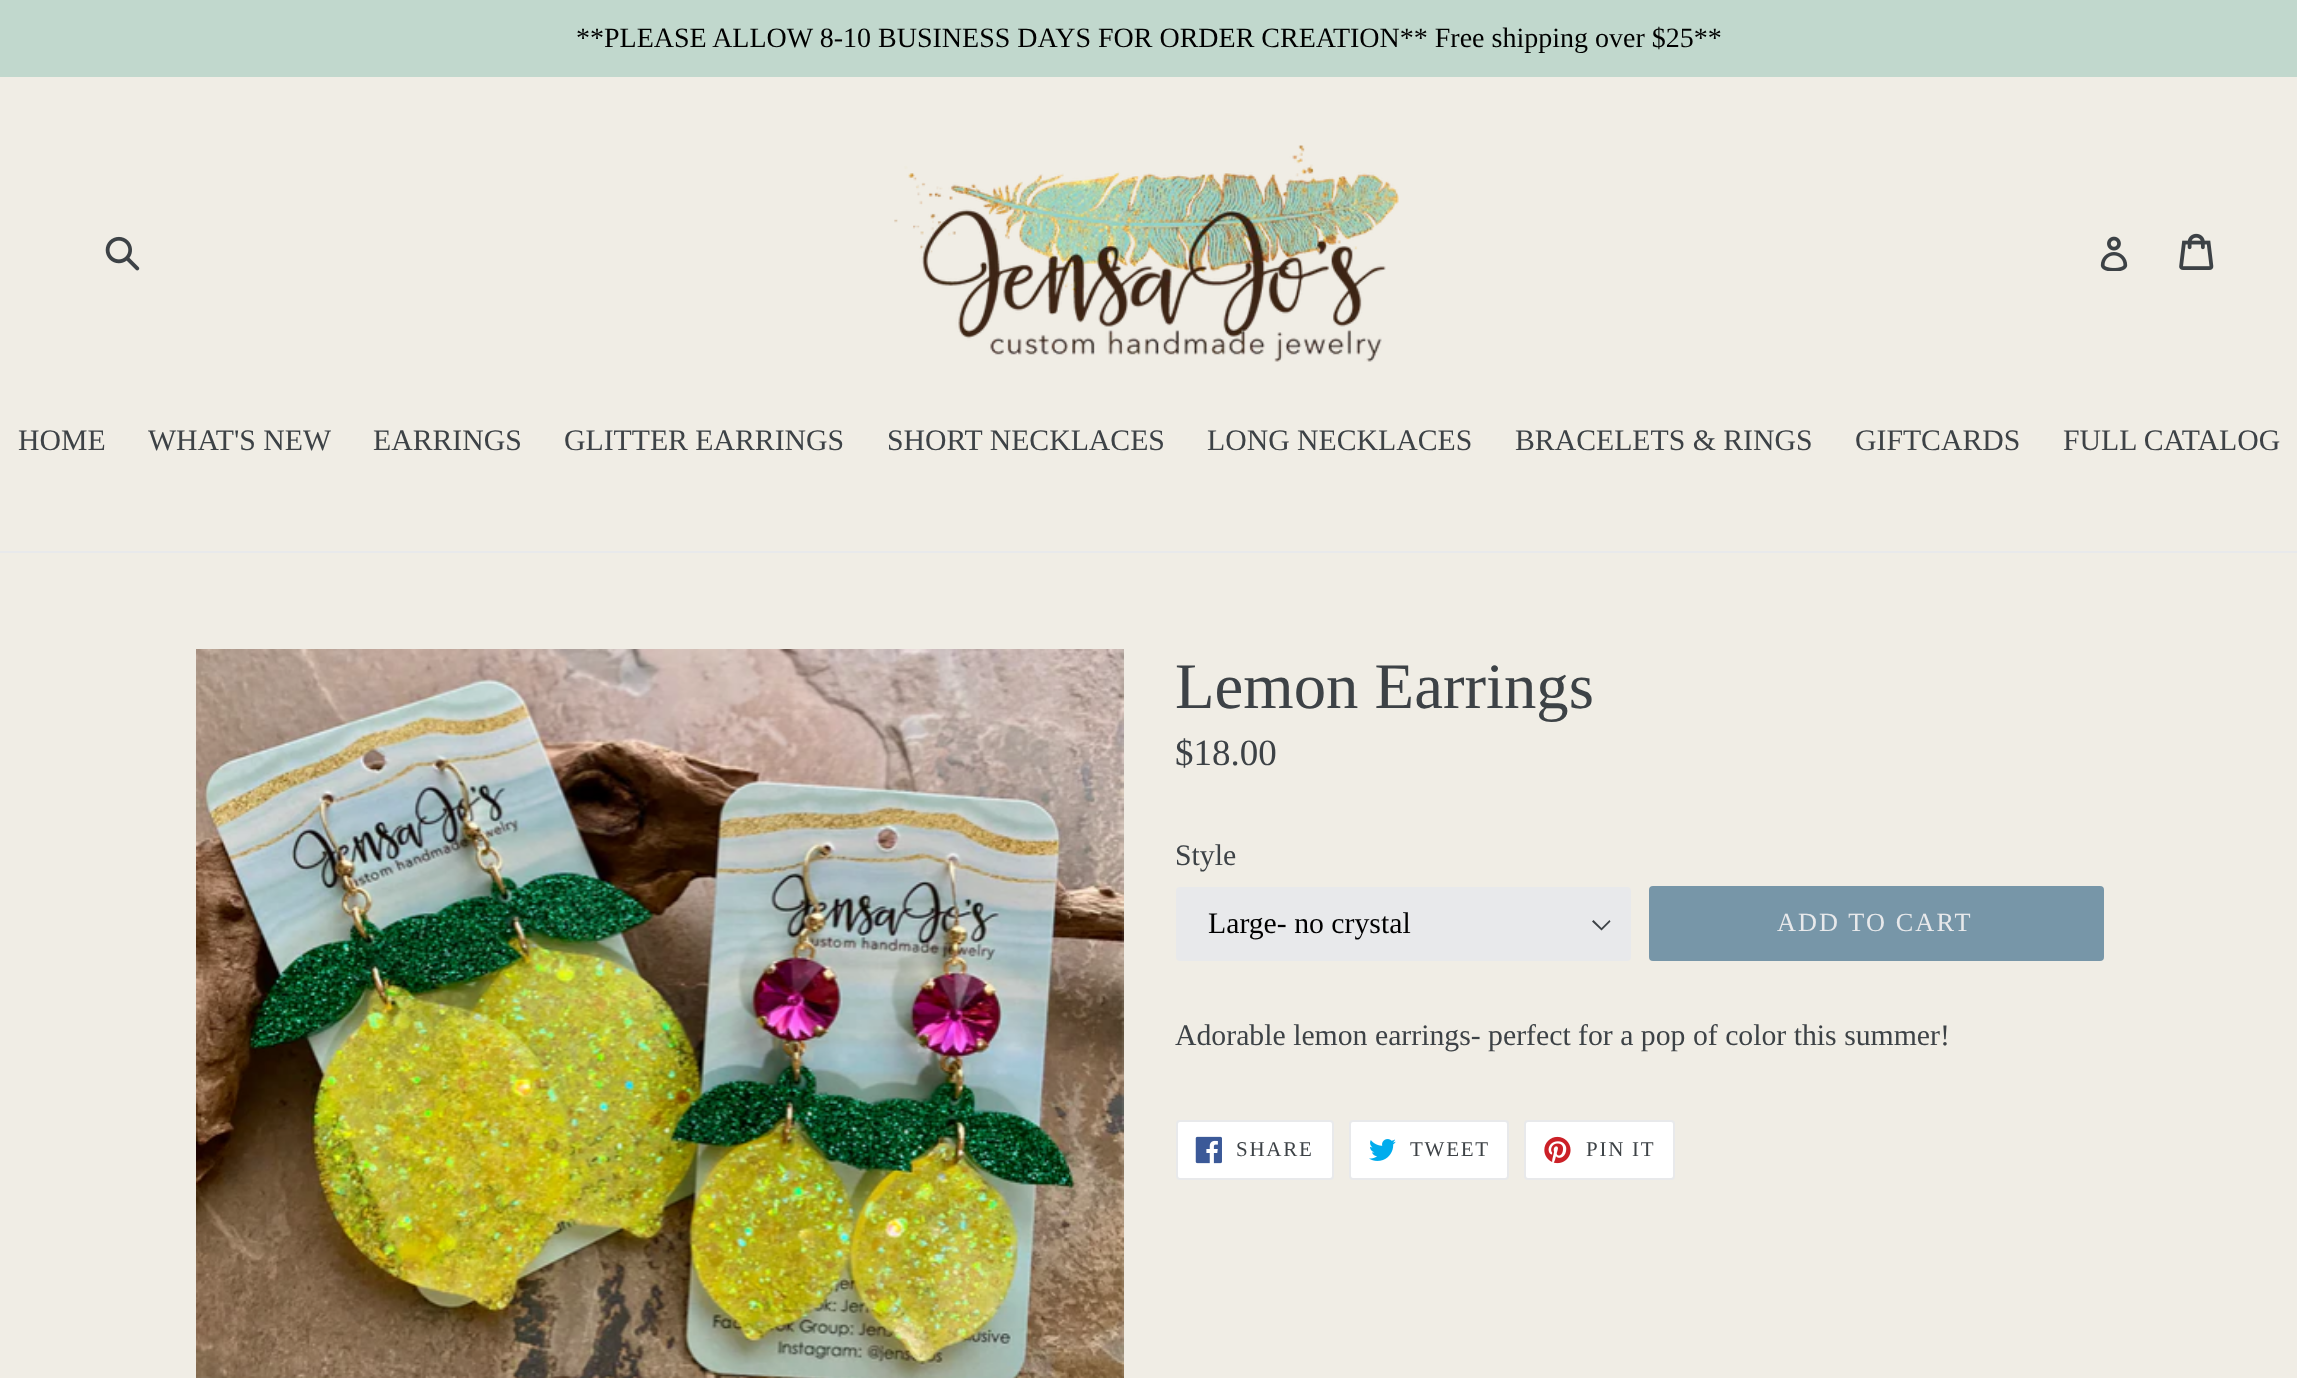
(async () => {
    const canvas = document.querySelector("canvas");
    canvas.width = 2297;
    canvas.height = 1378;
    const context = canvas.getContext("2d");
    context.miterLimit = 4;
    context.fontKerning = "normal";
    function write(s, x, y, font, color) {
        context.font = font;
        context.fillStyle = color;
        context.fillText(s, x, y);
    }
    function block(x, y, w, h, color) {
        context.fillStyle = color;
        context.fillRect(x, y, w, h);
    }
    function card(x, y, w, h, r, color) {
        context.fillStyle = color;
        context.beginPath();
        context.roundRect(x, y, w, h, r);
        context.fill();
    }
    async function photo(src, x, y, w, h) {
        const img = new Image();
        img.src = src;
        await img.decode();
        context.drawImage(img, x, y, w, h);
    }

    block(0, 0, 2297, 1378, "rgb(240, 237, 229)");
    block(0, 0, 2297, 77, "rgb(193, 216, 205)");
    write("**PLEASE ALLOW 8-10 BUSINESS DAYS FOR ORDER CREATION** Free shipping over $25**", 576, 47, "28px Liberation Serif", "rgb(0, 0, 0)");
    await photo("media/1.png", 105, 236, 35, 35);
    await photo("media/2.png", 894, 145, 505, 217);
    await photo("media/3.png", 2100, 236, 28, 35);
    await photo("media/4.png", 2179, 233, 35, 37);
    block(0, 551, 2297, 2, "rgb(232, 233, 235)");
    write("HOME", 18, 450, "29.75px Liberation Serif", "rgb(61, 66, 70)");
    write("WHAT'S NEW", 148, 450, "29.75px Liberation Serif", "rgb(61, 66, 70)");
    write("EARRINGS", 373, 450, "29.75px Liberation Serif", "rgb(61, 66, 70)");
    write("GLITTER EARRINGS", 564, 450, "29.75px Liberation Serif", "rgb(61, 66, 70)");
    write("SHORT NECKLACES", 887, 450, "29.75px Liberation Serif", "rgb(61, 66, 70)");
    write("LONG NECKLACES", 1207, 450, "29.75px Liberation Serif", "rgb(61, 66, 70)");
    write("BRACELETS & RINGS", 1515, 450, "29.75px Liberation Serif", "rgb(61, 66, 70)");
    write("GIFTCARDS", 1855, 450, "29.75px Liberation Serif", "rgb(61, 66, 70)");
    write("FULL CATALOG", 2063, 450, "29.75px Liberation Serif", "rgb(61, 66, 70)");
    await photo("media/5.png", 196, 649, 928, 729);
    write("Lemon Earrings", 1175, 708, "64.75px Liberation Serif", "rgb(61, 66, 70)");
    write("$18.00", 1175, 765, "37px Liberation Serif", "rgb(61, 66, 70)");
    write("Style", 1175, 865, "29.75px Liberation Serif", "rgb(61, 66, 70)");
    card(1176, 887, 455, 74, 4, "rgb(232, 233, 235)");
    context.fillStyle = "rgb(61, 66, 70)";
    context.beginPath();
    context.moveTo(1601.5, 930.5);
    context.lineTo(1592, 921.5);
    context.lineTo(1593.5, 920);
    context.lineTo(1601.5, 928);
    context.lineTo(1609.5, 920);
    context.lineTo(1610.5, 921.5);
    context.closePath();
    context.fill();
    write("Large- no crystal", 1208, 933, "29.75px Liberation Serif", "rgb(0, 0, 0)");
    card(1649, 886, 455, 75, 4, "rgb(119, 150, 168)");
    context.letterSpacing = "2.1px";
    write("ADD TO CART", 1777, 931, "26.25px Liberation Serif", "rgb(232, 233, 235)");
    context.letterSpacing = "0px";
    write("Adorable lemon earrings- perfect for a pop of color this summer!", 1175, 1045, "29.75px Liberation Serif", "rgb(61, 66, 70)");
    context.fillStyle = "rgb(255, 255, 255)";
    context.beginPath();
    context.roundRect(1177, 1121, 156, 58, 3);
    context.fill();
    context.strokeStyle = "rgb(232, 233, 235)";
    context.lineWidth = 2;
    context.stroke();
    await photo("media/6.png", 1195, 1136, 27, 28);
    context.letterSpacing = "1.75px";
    write("SHARE", 1236, 1156, "21px Liberation Serif", "rgb(61, 66, 70)");
    context.fillStyle = "rgb(255, 255, 255)";
    context.beginPath();
    context.roundRect(1350, 1121, 158, 58, 3);
    context.fill();
    context.stroke();
    await photo("media/7.png", 1369, 1139, 27, 22);
    write("TWEET", 1410, 1156, "21px Liberation Serif", "rgb(61, 66, 70)");
    context.fillStyle = "rgb(255, 255, 255)";
    context.beginPath();
    context.roundRect(1525, 1121, 149, 58, 3);
    context.fill();
    context.stroke();
    await photo("media/8.png", 1544, 1136, 27, 28);
    write("PIN IT", 1586, 1156, "21px Liberation Serif", "rgb(61, 66, 70)");
})();
